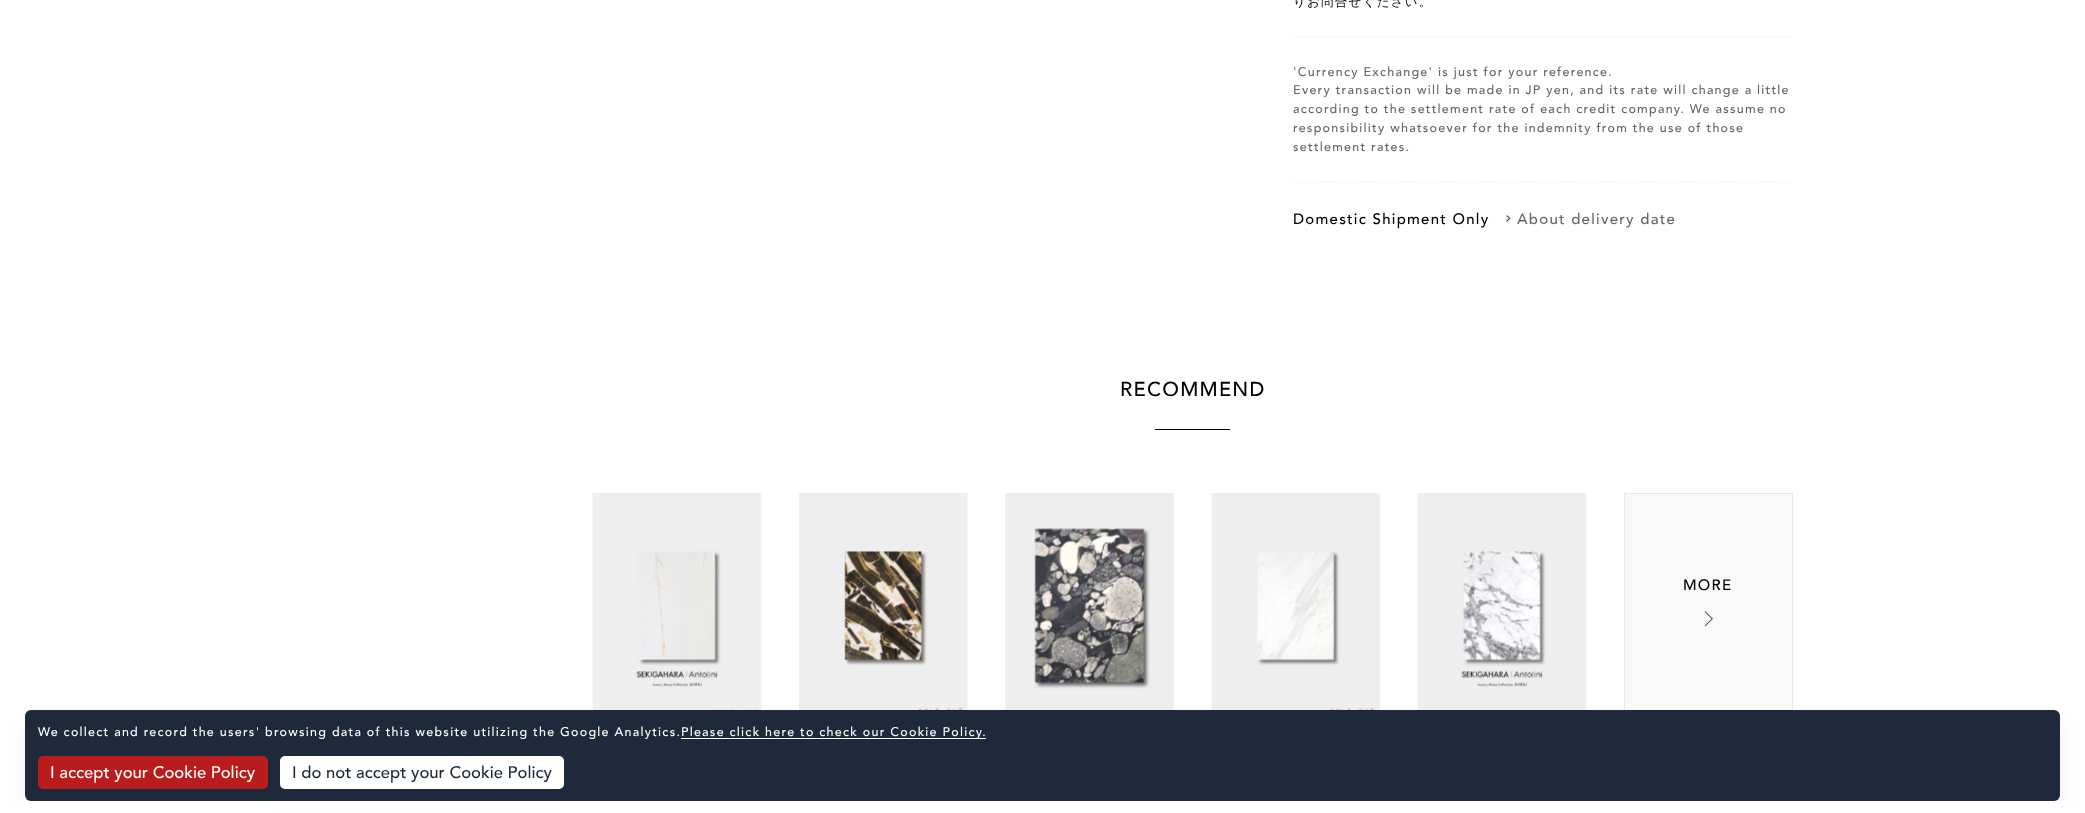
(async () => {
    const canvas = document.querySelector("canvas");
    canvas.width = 2085;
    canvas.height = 813;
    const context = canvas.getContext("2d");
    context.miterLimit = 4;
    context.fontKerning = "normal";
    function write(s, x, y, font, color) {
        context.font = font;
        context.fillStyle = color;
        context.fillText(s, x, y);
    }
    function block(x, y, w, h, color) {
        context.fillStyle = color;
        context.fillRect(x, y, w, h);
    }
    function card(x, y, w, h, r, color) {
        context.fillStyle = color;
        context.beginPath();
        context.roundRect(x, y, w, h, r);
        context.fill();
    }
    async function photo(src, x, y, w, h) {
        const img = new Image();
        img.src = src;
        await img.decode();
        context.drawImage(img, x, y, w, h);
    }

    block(0, 0, 2085, 813, "rgb(255, 255, 255)");
    context.beginPath();
    context.moveTo(1292.5, 37);
    context.lineTo(1792.5, 37);
    context.strokeStyle = "rgb(238, 238, 238)";
    context.lineWidth = 1.2;
    context.setLineDash([1.25, 1.25]);
    context.stroke();
    context.letterSpacing = "1.25px";
    write("りお問合せください。", 1293, 6, "500 12.5px WenQuanYi Zen Hei", "rgb(0, 0, 0)");
    context.beginPath();
    context.moveTo(1292.5, 182);
    context.lineTo(1792.5, 182);
    context.stroke();
    write("'Currency Exchange' is just for your reference.", 1293, 76, "12.5px Avenir", "rgb(102, 102, 102)");
    write("Every transaction will be made in JP yen, and its rate will change a little", 1293, 94, "12.5px Avenir", "rgb(102, 102, 102)");
    write("according to the settlement rate of each credit company. We assume no", 1293, 113, "12.5px Avenir", "rgb(102, 102, 102)");
    write("responsibility whatsoever for the indemnity from the use of those", 1293, 132, "12.5px Avenir", "rgb(102, 102, 102)");
    write("settlement rates.", 1293, 151, "12.5px Avenir", "rgb(102, 102, 102)");
    write("Domestic Shipment Only", 1293, 224, "15px Avenir", "rgb(0, 0, 0)");
    await photo("media/1.png", 1506, 215, 5, 7);
    write("About delivery date", 1517, 224, "15px Avenir", "rgb(102, 102, 102)");
    write("RECOMMEND", 1120, 396, "20px Avenir", "rgb(0, 0, 0)");
    block(1155, 429, 75, 1, "rgb(0, 0, 0)");
    await photo("media/2.png", 592, 493, 170, 217);
    await photo("media/3.png", 799, 493, 169, 217);
    await photo("media/4.png", 1005, 493, 169, 217);
    await photo("media/5.png", 1211, 493, 169, 217);
    await photo("media/6.png", 1417, 493, 170, 217);
    block(1625, 494, 167, 216, "rgb(248, 250, 250)");
    context.strokeStyle = "rgb(232, 232, 232)";
    context.lineWidth = 1;
    context.setLineDash([]);
    context.strokeRect(1624.5, 493.5, 168, 225);
    await photo("media/7.png", 1704, 611, 9, 16);
    write("MORE", 1683, 590, "15px Avenir", "rgb(0, 0, 0)");
    context.save();
    context.beginPath();
    context.rect(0, 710, 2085, 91);
    context.clip();
    context.fillStyle = "rgba(0, 0, 0, 0.1)";
    context.filter = "blur(9.5px)";
    context.beginPath();
    context.roundRect(29, 726, 2027, 84, 2.5);
    context.fill();
    context.filter = "none";
    context.restore();
    card(25, 710, 2035, 91, 6, "rgb(30, 41, 59)");
    write("We collect and record the users' browsing data of this website utilizing the Google Analytics.", 38, 736, "12.5px Avenir", "rgb(255, 255, 255)");
    block(681, 738, 305, 1, "rgb(255, 255, 255)");
    write("Please click here to check our Cookie Policy.", 681, 736, "12.5px Avenir", "rgb(255, 255, 255)");
    card(38, 756, 230, 33, 5, "rgb(185, 28, 28)");
    context.letterSpacing = "0px";
    write("I accept your Cookie Policy", 50, 778, "16.7px Avenir", "rgb(255, 255, 255)");
    card(280, 756, 284, 33, 5, "rgb(255, 255, 255)");
    write("I do not accept your Cookie Policy", 292, 778, "16.7px Avenir", "rgb(30, 41, 59)");
})();
